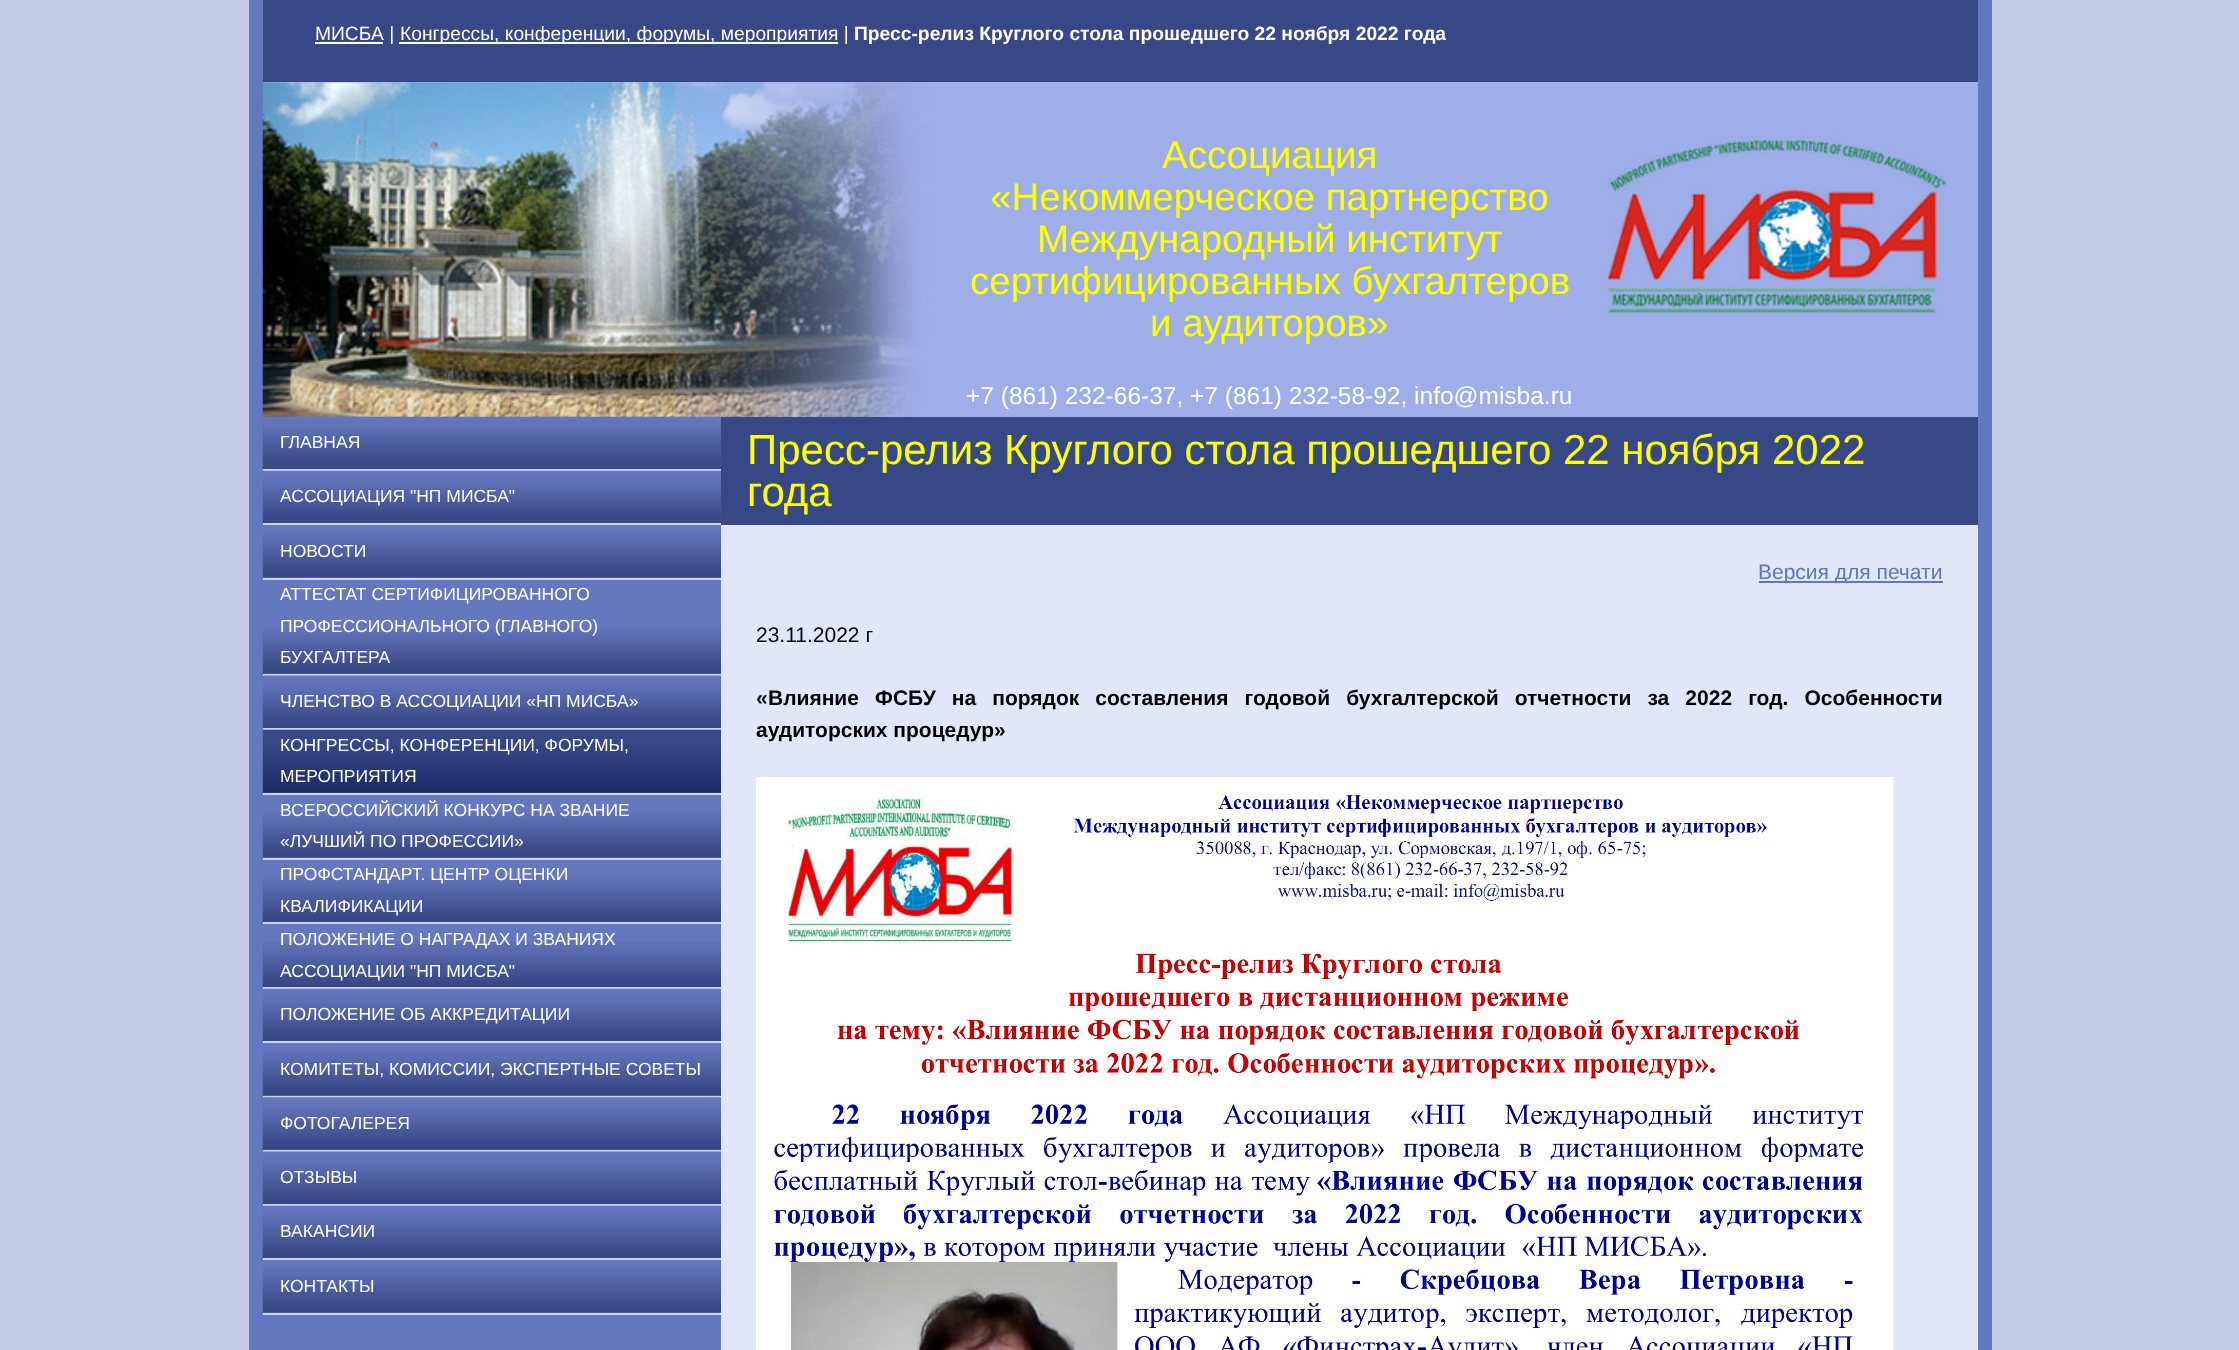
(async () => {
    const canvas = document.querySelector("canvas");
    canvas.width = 2239;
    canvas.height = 1350;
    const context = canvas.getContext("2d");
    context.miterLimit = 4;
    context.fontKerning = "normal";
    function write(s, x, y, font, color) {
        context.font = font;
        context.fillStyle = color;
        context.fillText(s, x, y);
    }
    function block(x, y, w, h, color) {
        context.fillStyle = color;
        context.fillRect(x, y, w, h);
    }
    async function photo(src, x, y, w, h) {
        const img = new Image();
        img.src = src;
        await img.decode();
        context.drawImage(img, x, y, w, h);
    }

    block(0, 0, 2239, 1350, "rgb(196, 204, 233)");
    block(249, 0, 1743, 1350, "rgb(100, 120, 191)");
    block(263, 82, 1715, 335, "rgb(157, 174, 232)");
    block(263, 0, 1715, 82, "rgb(54, 72, 134)");
    block(315, 42, 68, 2, "rgb(255, 255, 255)");
    write("МИСБА |", 315, 40, "19.25px Liberation Sans", "rgb(255, 255, 255)");
    block(399, 42, 439, 2, "rgb(255, 255, 255)");
    write("Конгрессы, конференции, форумы, мероприятия |", 400, 40, "19.25px Liberation Sans", "rgb(255, 255, 255)");
    write("Пресс-релиз Круглого стола прошедшего 22 ноября 2022 года", 854, 40, "bold 19.25px Liberation Sans", "rgb(255, 255, 255)");
    await photo("media/1.png", 262, 82, 694, 343);
    write("Ассоциация", 1162, 168, "38.5px Liberation Sans", "rgb(255, 255, 0)");
    write("«Некоммерческое партнерство", 990, 210, "38.5px Liberation Sans", "rgb(255, 255, 0)");
    write("Международный институт", 1037, 252, "38.5px Liberation Sans", "rgb(255, 255, 0)");
    write("сертифицированных бухгалтеров", 970, 294, "38.5px Liberation Sans", "rgb(255, 255, 0)");
    write("и аудиторов»", 1150, 336, "38.5px Liberation Sans", "rgb(255, 255, 0)");
    write("+7 (861) 232-66-37, +7 (861) 232-58-92, info@misba.ru", 966, 404, "24.5px Liberation Sans", "rgb(255, 255, 255)");
    await photo("media/2.png", 1601, 135, 350, 183);
    await photo("media/3.png", 262, 416, 459, 53);
    block(263, 469, 458, 2, "rgb(205, 214, 241)");
    write("ГЛАВНАЯ", 280, 448, "17.5px Liberation Sans", "rgb(255, 255, 255)");
    await photo("media/4.png", 262, 470, 459, 54);
    block(263, 523, 458, 2, "rgb(205, 214, 241)");
    write("АССОЦИАЦИЯ \"НП МИСБА\"", 280, 502, "17.5px Liberation Sans", "rgb(255, 255, 255)");
    await photo("media/5.png", 262, 532, 459, 46);
    block(263, 578, 458, 2, "rgb(205, 214, 241)");
    write("НОВОСТИ", 280, 557, "17.5px Liberation Sans", "rgb(255, 255, 255)");
    await photo("media/6.png", 262, 628, 459, 46);
    block(263, 674, 458, 2, "rgb(205, 214, 241)");
    write("АТТЕСТАТ СЕРТИФИЦИРОВАННОГО", 280, 600, "17.5px Liberation Sans", "rgb(255, 255, 255)");
    write("ПРОФЕССИОНАЛЬНОГО (ГЛАВНОГО)", 280, 632, "17.5px Liberation Sans", "rgb(255, 255, 255)");
    write("БУХГАЛТЕРА", 280, 663, "17.5px Liberation Sans", "rgb(255, 255, 255)");
    await photo("media/7.png", 262, 675, 459, 53);
    block(263, 728, 458, 2, "rgb(205, 214, 241)");
    write("ЧЛЕНСТВО В АССОЦИАЦИИ «НП МИСБА»", 280, 707, "17.5px Liberation Sans", "rgb(255, 255, 255)");
    await photo("media/8.png", 262, 729, 459, 64);
    block(263, 793, 458, 2, "rgb(205, 214, 241)");
    write("КОНГРЕССЫ, КОНФЕРЕНЦИИ, ФОРУМЫ,", 280, 751, "17.5px Liberation Sans", "rgb(255, 255, 255)");
    write("МЕРОПРИЯТИЯ", 280, 782, "17.5px Liberation Sans", "rgb(255, 255, 255)");
    await photo("media/5.png", 262, 812, 459, 46);
    block(263, 858, 458, 2, "rgb(205, 214, 241)");
    write("ВСЕРОССИЙСКИЙ КОНКУРС НА ЗВАНИЕ", 280, 816, "17.5px Liberation Sans", "rgb(255, 255, 255)");
    write("«ЛУЧШИЙ ПО ПРОФЕССИИ»", 280, 847, "17.5px Liberation Sans", "rgb(255, 255, 255)");
    await photo("media/9.png", 262, 877, 459, 46);
    block(263, 922, 458, 2, "rgb(205, 214, 241)");
    write("ПРОФСТАНДАРТ. ЦЕНТР ОЦЕНКИ", 280, 880, "17.5px Liberation Sans", "rgb(255, 255, 255)");
    write("КВАЛИФИКАЦИИ", 280, 912, "17.5px Liberation Sans", "rgb(255, 255, 255)");
    await photo("media/10.png", 262, 941, 459, 46);
    block(263, 987, 458, 2, "rgb(205, 214, 241)");
    write("ПОЛОЖЕНИЕ О НАГРАДАХ И ЗВАНИЯХ", 280, 945, "17.5px Liberation Sans", "rgb(255, 255, 255)");
    write("АССОЦИАЦИИ \"НП МИСБА\"", 280, 977, "17.5px Liberation Sans", "rgb(255, 255, 255)");
    await photo("media/4.png", 262, 988, 459, 54);
    block(263, 1041, 458, 2, "rgb(205, 214, 241)");
    write("ПОЛОЖЕНИЕ ОБ АККРЕДИТАЦИИ", 280, 1020, "17.5px Liberation Sans", "rgb(255, 255, 255)");
    await photo("media/5.png", 262, 1050, 459, 46);
    block(263, 1096, 458, 2, "rgb(205, 214, 241)");
    write("КОМИТЕТЫ, КОМИССИИ, ЭКСПЕРТНЫЕ СОВЕТЫ", 280, 1075, "17.5px Liberation Sans", "rgb(255, 255, 255)");
    await photo("media/11.png", 262, 1097, 459, 53);
    block(263, 1150, 458, 2, "rgb(205, 214, 241)");
    write("ФОТОГАЛЕРЕЯ", 280, 1129, "17.5px Liberation Sans", "rgb(255, 255, 255)");
    await photo("media/7.png", 262, 1151, 459, 53);
    block(263, 1204, 458, 2, "rgb(205, 214, 241)");
    write("ОТЗЫВЫ", 280, 1183, "17.5px Liberation Sans", "rgb(255, 255, 255)");
    await photo("media/4.png", 262, 1205, 459, 54);
    block(263, 1258, 458, 2, "rgb(205, 214, 241)");
    write("ВАКАНСИИ", 280, 1237, "17.5px Liberation Sans", "rgb(255, 255, 255)");
    await photo("media/5.png", 262, 1267, 459, 46);
    block(263, 1313, 458, 2, "rgb(205, 214, 241)");
    write("КОНТАКТЫ", 280, 1292, "17.5px Liberation Sans", "rgb(255, 255, 255)");
    block(721, 525, 1257, 825, "rgb(225, 231, 248)");
    block(721, 417, 1257, 108, "rgb(54, 72, 134)");
    write("Пресс-релиз Круглого стола прошедшего 22 ноября 2022", 747, 464, "42px Liberation Sans", "rgb(255, 255, 0)");
    write("года", 747, 506, "42px Liberation Sans", "rgb(255, 255, 0)");
    block(1759, 581, 184, 2, "rgb(97, 117, 187)");
    write("Версия для печати", 1758, 579, "21px Liberation Sans", "rgb(97, 117, 187)");
    write("23.11.2022 г", 756, 642, "21px Liberation Sans", "rgb(0, 0, 0)");
    write("«", 756, 705, "bold 21px Liberation Sans", "rgb(0, 0, 0)");
    context.wordSpacing = "10.25px";
    write("Влияние ФСБУ на порядок составления годовой бухгалтерской отчетности за 2022 год. Особенности", 768, 705, "bold 21px Liberation Sans", "rgb(0, 0, 0)");
    context.wordSpacing = "0px";
    write("аудиторских процедур»", 756, 737, "bold 21px Liberation Sans", "rgb(0, 0, 0)");
    await photo("media/12.png", 756, 777, 1138, 573);
})();
